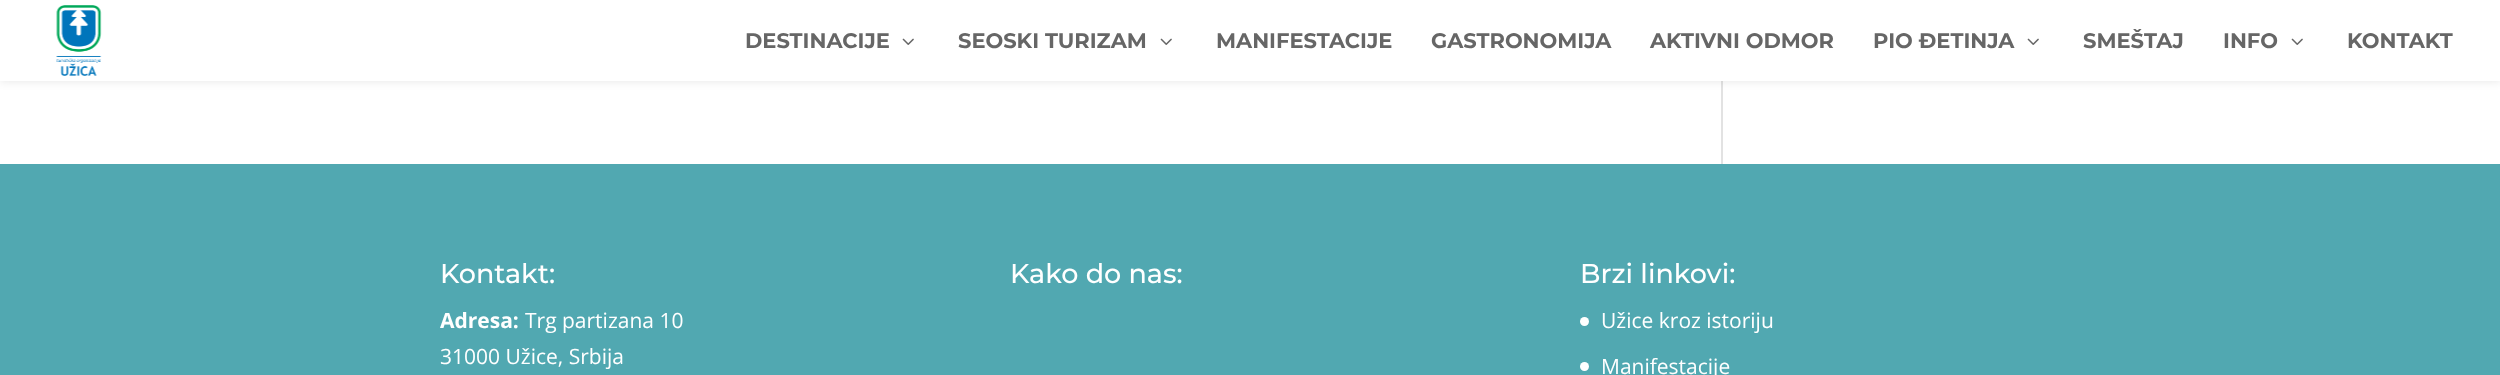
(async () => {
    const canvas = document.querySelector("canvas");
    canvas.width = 2500;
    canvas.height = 375;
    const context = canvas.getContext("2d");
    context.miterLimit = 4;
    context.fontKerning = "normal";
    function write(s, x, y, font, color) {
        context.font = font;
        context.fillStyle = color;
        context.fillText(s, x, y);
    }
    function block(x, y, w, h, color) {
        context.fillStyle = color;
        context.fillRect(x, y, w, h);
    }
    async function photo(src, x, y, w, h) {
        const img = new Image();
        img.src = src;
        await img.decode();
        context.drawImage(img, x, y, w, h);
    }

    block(0, 0, 2500, 375, "rgb(255, 255, 255)");
    block(1721, 81, 2, 83, "rgb(226, 226, 226)");
    context.fillStyle = "rgba(0, 0, 0, 0.1)";
    context.filter = "blur(5px)";
    context.beginPath();
    context.rect(0, 0, 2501, 81);
    context.fill();
    context.filter = "none";
    block(0, 0, 2500, 81, "rgb(255, 255, 255)");
    await photo("media/1.png", 56, 5, 46, 71);
    write("DESTINACIJE", 745, 48, "bold 21px Montserrat", "rgb(102, 102, 102)");
    await photo("media/2.png", 902, 38, 12, 7);
    write("SEOSKI TURIZAM", 958, 48, "bold 21px Montserrat", "rgb(102, 102, 102)");
    await photo("media/2.png", 1160, 38, 12, 7);
    write("MANIFESTACIJE", 1216, 48, "bold 21px Montserrat", "rgb(102, 102, 102)");
    write("GASTRONOMIJA", 1431, 48, "bold 21px Montserrat", "rgb(102, 102, 102)");
    write("AKTIVNI ODMOR", 1650, 48, "bold 21px Montserrat", "rgb(102, 102, 102)");
    write("PIO ĐETINJA", 1873, 48, "bold 21px Montserrat", "rgb(102, 102, 102)");
    await photo("media/2.png", 2027, 38, 12, 7);
    write("SMEŠTAJ", 2083, 48, "bold 21px Montserrat", "rgb(102, 102, 102)");
    write("INFO", 2223, 48, "bold 21px Montserrat", "rgb(102, 102, 102)");
    await photo("media/2.png", 2291, 38, 12, 7);
    write("KONTAKT", 2347, 48, "bold 21px Montserrat", "rgb(102, 102, 102)");
    block(0, 164, 2500, 211, "rgb(81, 168, 177)");
    write("Kontakt:", 440, 283, "500 27px Montserrat", "rgb(255, 255, 255)");
    write("Adresa:", 440, 328, "bold 21px Open Sans", "rgb(255, 255, 255)");
    write("Trg partizana 10", 525, 328, "21px Open Sans", "rgb(255, 255, 255)");
    write("31000 Užice, Srbija", 440, 364, "21px Open Sans", "rgb(255, 255, 255)");
    write("Kako do nas:", 1010, 283, "500 27px Montserrat", "rgb(255, 255, 255)");
    write("Brzi linkovi:", 1580, 283, "500 27px Montserrat", "rgb(255, 255, 255)");
    context.beginPath();
    context.arc(1584.5, 321.5, 4.5, 0, Math.PI * 2);
    context.fill();
    write("Užice kroz istoriju", 1601, 328, "21px Open Sans", "rgb(255, 255, 255)");
    context.beginPath();
    context.arc(1584.5, 366.5, 4.5, 0, Math.PI * 2);
    context.fill();
    write("Manifestacije", 1601, 374, "21px Open Sans", "rgb(255, 255, 255)");
})();
